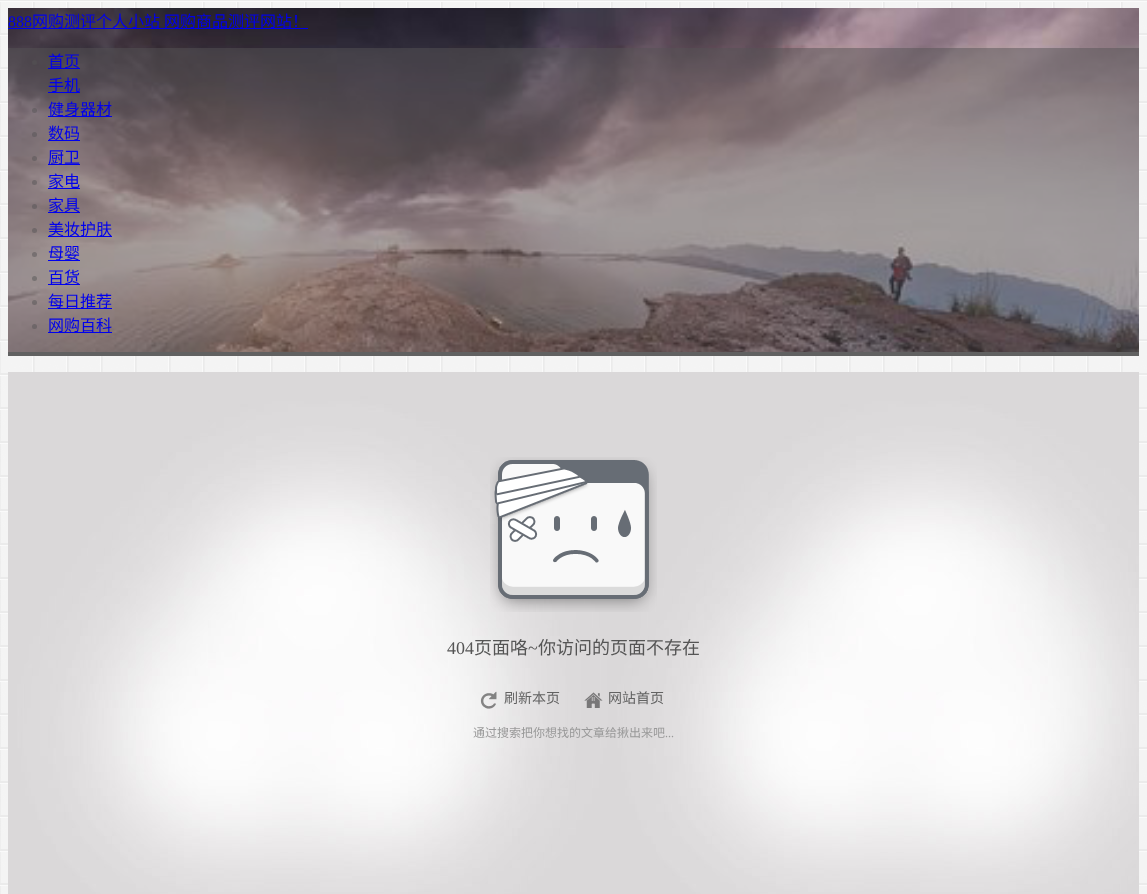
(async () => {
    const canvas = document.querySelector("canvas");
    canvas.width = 1147;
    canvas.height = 894;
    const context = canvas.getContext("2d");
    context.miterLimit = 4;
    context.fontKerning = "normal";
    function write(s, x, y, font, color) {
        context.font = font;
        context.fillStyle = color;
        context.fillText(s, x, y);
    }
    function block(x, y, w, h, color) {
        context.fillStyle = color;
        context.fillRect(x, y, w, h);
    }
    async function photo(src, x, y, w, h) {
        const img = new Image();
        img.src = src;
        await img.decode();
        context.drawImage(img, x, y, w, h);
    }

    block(0, 0, 1147, 894, "rgb(255, 255, 255)");
    await photo("media/1.png", 0, 0, 1147, 894);
    await photo("media/2.png", 8, 8, 1131, 344);
    write("888", 8, 27, "16px Liberation Serif", "rgb(0, 0, 238)");
    block(8, 28, 300, 1, "rgb(0, 0, 238)");
    write("网购测评个人小站", 32, 27, "16px Noto Sans CJK SC", "rgb(0, 0, 238)");
    write("网购商品测评网站！", 164, 27, "16px Noto Sans CJK SC", "rgb(0, 0, 238)");
    block(8, 48, 1131, 304, "rgba(85, 84, 85, 0.5)");
    block(8, 352, 1131, 4, "rgb(97, 97, 97)");
    context.fillStyle = "rgb(81, 77, 81)";
    context.beginPath();
    context.arc(34.5, 62.5, 2.5, 0, Math.PI * 2);
    context.fill();
    block(48, 68, 32, 1, "rgb(0, 0, 238)");
    write("首页", 48, 67, "16px Noto Sans CJK SC", "rgb(0, 0, 238)");
    block(48, 92, 32, 1, "rgb(0, 0, 238)");
    write("手机", 48, 91, "16px Noto Sans CJK SC", "rgb(0, 0, 238)");
    context.fillStyle = "rgba(85, 84, 85, 0.5)";
    context.beginPath();
    context.arc(34.5, 110.5, 2.5, 0, Math.PI * 2);
    context.fill();
    block(48, 116, 64, 1, "rgb(0, 0, 238)");
    write("健身器材", 48, 115, "16px Noto Sans CJK SC", "rgb(0, 0, 238)");
    context.fillStyle = "rgba(85, 84, 85, 0.5)";
    context.beginPath();
    context.arc(34.5, 134.5, 2.5, 0, Math.PI * 2);
    context.fill();
    block(48, 140, 32, 1, "rgb(0, 0, 238)");
    write("数码", 48, 139, "16px Noto Sans CJK SC", "rgb(0, 0, 238)");
    context.fillStyle = "rgba(85, 84, 85, 0.5)";
    context.beginPath();
    context.arc(34.5, 158.5, 2.5, 0, Math.PI * 2);
    context.fill();
    block(48, 164, 32, 1, "rgb(0, 0, 238)");
    write("厨卫", 48, 163, "16px Noto Sans CJK SC", "rgb(0, 0, 238)");
    context.fillStyle = "rgba(85, 84, 85, 0.5)";
    context.beginPath();
    context.arc(34.5, 182.5, 2.5, 0, Math.PI * 2);
    context.fill();
    block(48, 188, 32, 1, "rgb(0, 0, 238)");
    write("家电", 48, 187, "16px Noto Sans CJK SC", "rgb(0, 0, 238)");
    context.fillStyle = "rgba(85, 84, 85, 0.5)";
    context.beginPath();
    context.arc(34.5, 206.5, 2.5, 0, Math.PI * 2);
    context.fill();
    block(48, 212, 32, 1, "rgb(0, 0, 238)");
    write("家具", 48, 211, "16px Noto Sans CJK SC", "rgb(0, 0, 238)");
    context.fillStyle = "rgba(85, 84, 85, 0.5)";
    context.beginPath();
    context.arc(34.5, 230.5, 2.5, 0, Math.PI * 2);
    context.fill();
    block(48, 236, 64, 1, "rgb(0, 0, 238)");
    write("美妆护肤", 48, 235, "16px Noto Sans CJK SC", "rgb(0, 0, 238)");
    context.fillStyle = "rgba(85, 84, 85, 0.5)";
    context.beginPath();
    context.arc(34.5, 254.5, 2.5, 0, Math.PI * 2);
    context.fill();
    block(48, 260, 32, 1, "rgb(0, 0, 238)");
    write("母婴", 48, 259, "16px Noto Sans CJK SC", "rgb(0, 0, 238)");
    context.fillStyle = "rgb(119, 114, 114)";
    context.beginPath();
    context.arc(34.5, 278.5, 2.5, 0, Math.PI * 2);
    context.fill();
    block(48, 284, 32, 1, "rgb(0, 0, 238)");
    write("百货", 48, 283, "16px Noto Sans CJK SC", "rgb(0, 0, 238)");
    context.fillStyle = "rgba(85, 84, 85, 0.5)";
    context.beginPath();
    context.arc(34.5, 302.5, 2.5, 0, Math.PI * 2);
    context.fill();
    block(48, 308, 64, 1, "rgb(0, 0, 238)");
    write("每日推荐", 48, 307, "16px Noto Sans CJK SC", "rgb(0, 0, 238)");
    context.fillStyle = "rgba(85, 84, 85, 0.5)";
    context.beginPath();
    context.arc(34.5, 326.5, 2.5, 0, Math.PI * 2);
    context.fill();
    block(48, 332, 64, 1, "rgb(0, 0, 238)");
    write("网购百科", 48, 331, "16px Noto Sans CJK SC", "rgb(0, 0, 238)");
    context.fillStyle = "rgba(85, 84, 85, 0.5)";
    context.beginPath();
    context.arc(1118.5, 345.5, 2.5, 0, Math.PI * 2);
    context.fill();
    await photo("media/3.png", 8, 372, 1131, 522);
    await photo("media/4.png", 490, 457, 167, 155);
    write("404", 447, 654, "18px Liberation Serif", "rgb(85, 85, 85)");
    write("页面咯", 474, 654, "18px Noto Sans CJK SC", "rgb(85, 85, 85)");
    write("~", 528, 654, "18px Liberation Serif", "rgb(85, 85, 85)");
    write("你访问的页面不存在", 538, 654, "18px Noto Sans CJK SC", "rgb(85, 85, 85)");
    await photo("media/5.png", 480, 691, 17, 18);
    write("刷新本页", 504, 703, "14px Noto Sans CJK SC", "rgb(98, 98, 98)");
    await photo("media/6.png", 584, 692, 19, 16);
    write("网站首页", 608, 703, "14px Noto Sans CJK SC", "rgb(98, 98, 98)");
    write("通过搜索把你想找的文章给揪出来吧", 473, 737, "12px Noto Sans CJK SC", "rgb(153, 153, 153)");
    write("...", 665, 737, "12px Liberation Serif", "rgb(153, 153, 153)");
})();
